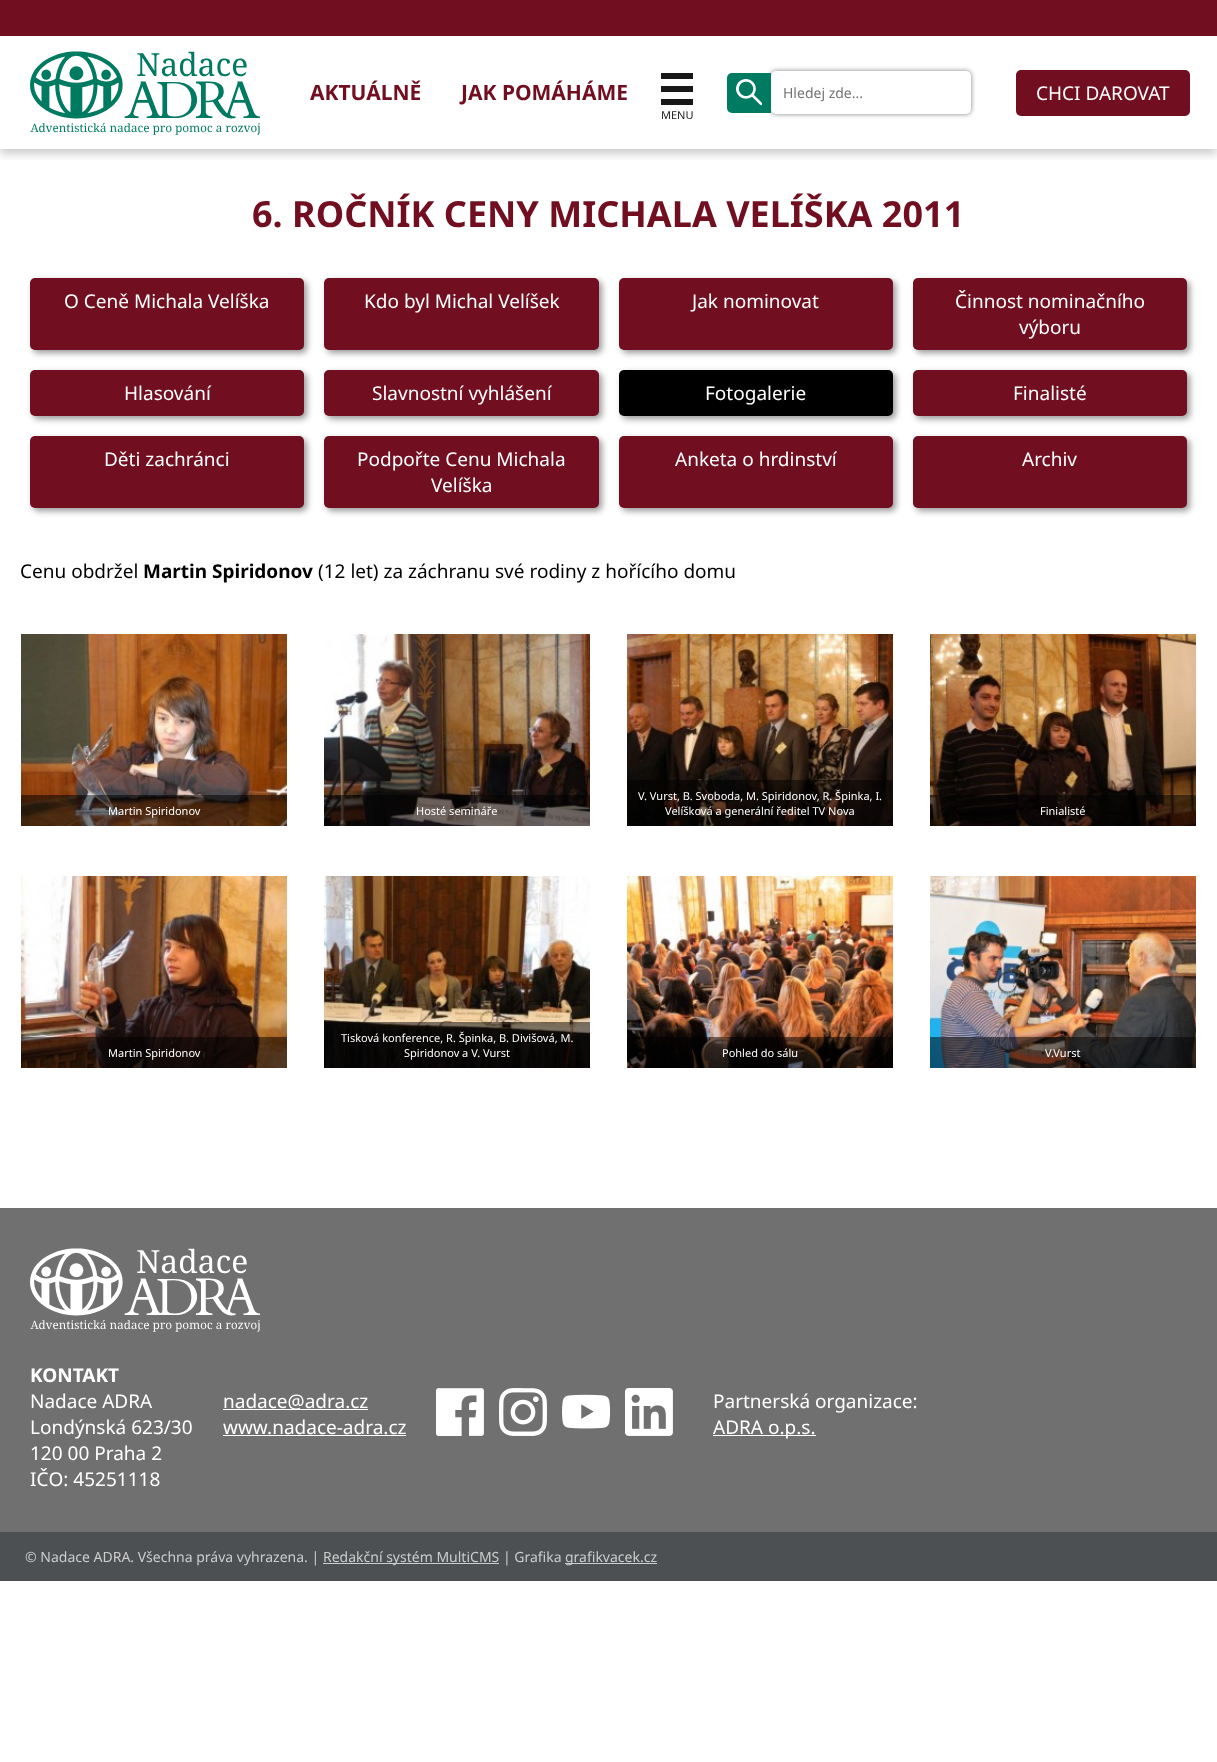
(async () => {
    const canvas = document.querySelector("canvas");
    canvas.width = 1217;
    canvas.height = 1762;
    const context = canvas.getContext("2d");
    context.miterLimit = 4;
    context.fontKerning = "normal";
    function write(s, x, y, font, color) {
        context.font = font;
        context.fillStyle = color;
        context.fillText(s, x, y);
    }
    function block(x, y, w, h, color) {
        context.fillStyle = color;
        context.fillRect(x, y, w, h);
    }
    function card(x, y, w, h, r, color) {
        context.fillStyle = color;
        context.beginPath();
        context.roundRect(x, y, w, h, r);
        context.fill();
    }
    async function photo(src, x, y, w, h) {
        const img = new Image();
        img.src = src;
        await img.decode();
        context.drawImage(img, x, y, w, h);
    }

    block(0, 0, 1217, 1762, "rgb(255, 255, 255)");
    context.save();
    context.beginPath();
    context.rect(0, 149, 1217, 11);
    context.clip();
    context.fillStyle = "rgba(0, 0, 0, 0.2)";
    context.filter = "blur(5px)";
    context.beginPath();
    context.rect(0, 5, 1217, 149);
    context.fill();
    context.filter = "none";
    context.restore();
    block(0, 0, 1217, 36, "rgb(113, 14, 32)");
    await photo("media/1.png", 30, 51, 230, 84);
    write("AKTUÁLNĚ", 310, 100, "bold 21px Noto Sans", "rgb(113, 14, 32)");
    write("JAK POMÁHÁME", 461, 100, "bold 21px Noto Sans", "rgb(113, 14, 32)");
    block(661, 73, 32, 6, "rgb(24, 24, 24)");
    block(661, 99, 32, 6, "rgb(24, 24, 24)");
    block(661, 86, 32, 6, "rgb(24, 24, 24)");
    write("MENU", 661, 119, "11px Noto Sans", "rgb(24, 24, 24)");
    context.fillStyle = "rgba(0, 0, 0, 0.5)";
    context.filter = "blur(2.5px)";
    context.beginPath();
    context.roundRect(771, 71, 200, 43, 5);
    context.fill();
    context.filter = "none";
    context.fillStyle = "rgb(0, 122, 97)";
    context.beginPath();
    context.roundRect(727, 73, 44, 40, [5, 0, 0, 5]);
    context.fill();
    await photo("media/2.png", 736, 79, 26, 27);
    card(771, 71, 200, 43, 5, "rgb(255, 255, 255)");
    write("Hledej zde...", 783, 98, "14px Noto Sans", "rgb(117, 117, 117)");
    card(1016, 70, 174, 46, 5, "rgb(113, 14, 32)");
    write("CHCI DAROVAT", 1036, 100, "19px Noto Sans", "rgb(255, 255, 255)");
    write("6. ROČNÍK CENY MICHALA VELÍŠKA 2011", 252, 227, "bold 36px Noto Sans", "rgb(113, 14, 32)");
    context.fillStyle = "rgba(0, 0, 0, 0.4)";
    context.filter = "blur(3px)";
    context.beginPath();
    context.roundRect(33, 281, 274, 72, 5);
    context.fill();
    context.filter = "none";
    card(30, 278, 274, 72, 5, "rgb(113, 14, 32)");
    write("O Ceně Michala Velíška", 64, 308, "19px Noto Sans", "rgb(255, 255, 255)");
    context.fillStyle = "rgba(0, 0, 0, 0.4)";
    context.filter = "blur(3px)";
    context.beginPath();
    context.roundRect(327, 281, 275, 72, 5);
    context.fill();
    context.filter = "none";
    card(324, 278, 275, 72, 5, "rgb(113, 14, 32)");
    write("Kdo byl Michal Velíšek", 364, 308, "19px Noto Sans", "rgb(255, 255, 255)");
    context.fillStyle = "rgba(0, 0, 0, 0.4)";
    context.filter = "blur(3px)";
    context.beginPath();
    context.roundRect(622, 281, 274, 72, 5);
    context.fill();
    context.filter = "none";
    card(619, 278, 274, 72, 5, "rgb(113, 14, 32)");
    write("Jak nominovat", 692, 308, "19px Noto Sans", "rgb(255, 255, 255)");
    context.fillStyle = "rgba(0, 0, 0, 0.4)";
    context.filter = "blur(3px)";
    context.beginPath();
    context.roundRect(916, 281, 274, 72, 5);
    context.fill();
    context.filter = "none";
    card(913, 278, 274, 72, 5, "rgb(113, 14, 32)");
    write("Činnost nominačního", 955, 308, "19px Noto Sans", "rgb(255, 255, 255)");
    write("výboru", 1019, 334, "19px Noto Sans", "rgb(255, 255, 255)");
    context.fillStyle = "rgba(0, 0, 0, 0.4)";
    context.filter = "blur(3px)";
    context.beginPath();
    context.roundRect(33, 373, 274, 46, 5);
    context.fill();
    context.filter = "none";
    card(30, 370, 274, 46, 5, "rgb(113, 14, 32)");
    write("Hlasování", 124, 400, "19px Noto Sans", "rgb(255, 255, 255)");
    context.fillStyle = "rgba(0, 0, 0, 0.4)";
    context.filter = "blur(3px)";
    context.beginPath();
    context.roundRect(327, 373, 275, 46, 5);
    context.fill();
    context.filter = "none";
    card(324, 370, 275, 46, 5, "rgb(113, 14, 32)");
    write("Slavnostní vyhlášení", 372, 400, "19px Noto Sans", "rgb(255, 255, 255)");
    context.fillStyle = "rgba(0, 0, 0, 0.4)";
    context.filter = "blur(3px)";
    context.beginPath();
    context.roundRect(622, 373, 274, 46, 5);
    context.fill();
    context.filter = "none";
    card(619, 370, 274, 46, 5, "rgb(0, 0, 0)");
    write("Fotogalerie", 705, 400, "19px Noto Sans", "rgb(255, 255, 255)");
    context.fillStyle = "rgba(0, 0, 0, 0.4)";
    context.filter = "blur(3px)";
    context.beginPath();
    context.roundRect(916, 373, 274, 46, 5);
    context.fill();
    context.filter = "none";
    card(913, 370, 274, 46, 5, "rgb(113, 14, 32)");
    write("Finalisté", 1013, 400, "19px Noto Sans", "rgb(255, 255, 255)");
    context.fillStyle = "rgba(0, 0, 0, 0.4)";
    context.filter = "blur(3px)";
    context.beginPath();
    context.roundRect(33, 439, 274, 72, 5);
    context.fill();
    context.filter = "none";
    card(30, 436, 274, 72, 5, "rgb(113, 14, 32)");
    write("Děti zachránci", 104, 466, "19px Noto Sans", "rgb(255, 255, 255)");
    context.fillStyle = "rgba(0, 0, 0, 0.4)";
    context.filter = "blur(3px)";
    context.beginPath();
    context.roundRect(327, 439, 275, 72, 5);
    context.fill();
    context.filter = "none";
    card(324, 436, 275, 72, 5, "rgb(113, 14, 32)");
    write("Podpořte Cenu Michala", 357, 466, "19px Noto Sans", "rgb(255, 255, 255)");
    write("Velíška", 431, 492, "19px Noto Sans", "rgb(255, 255, 255)");
    context.fillStyle = "rgba(0, 0, 0, 0.4)";
    context.filter = "blur(3px)";
    context.beginPath();
    context.roundRect(622, 439, 274, 72, 5);
    context.fill();
    context.filter = "none";
    card(619, 436, 274, 72, 5, "rgb(113, 14, 32)");
    write("Anketa o hrdinství", 675, 466, "19px Noto Sans", "rgb(255, 255, 255)");
    context.fillStyle = "rgba(0, 0, 0, 0.4)";
    context.filter = "blur(3px)";
    context.beginPath();
    context.roundRect(916, 439, 274, 72, 5);
    context.fill();
    context.filter = "none";
    card(913, 436, 274, 72, 5, "rgb(113, 14, 32)");
    write("Archiv", 1022, 466, "19px Noto Sans", "rgb(255, 255, 255)");
    write("Cenu obdržel", 20, 578, "19px Noto Sans", "rgb(0, 0, 0)");
    write("Martin Spiridonov", 143, 578, "bold 19px Noto Sans", "rgb(0, 0, 0)");
    write("(12 let) za záchranu své rodiny z hořícího domu", 318, 578, "19px Noto Sans", "rgb(0, 0, 0)");
    await photo("media/3.png", 21, 634, 266, 192);
    block(21, 795, 266, 31, "rgba(0, 0, 0, 0.5)");
    write("Martin Spiridonov", 108, 815, "11px Noto Sans", "rgb(255, 255, 255)");
    await photo("media/4.png", 324, 634, 266, 192);
    block(324, 795, 266, 31, "rgba(0, 0, 0, 0.5)");
    write("Hosté semináře", 416, 815, "11px Noto Sans", "rgb(255, 255, 255)");
    await photo("media/5.png", 627, 634, 266, 192);
    block(627, 780, 266, 46, "rgba(0, 0, 0, 0.5)");
    write("V. Vurst, B. Svoboda, M. Spiridonov, R. Špinka, I.", 638, 800, "11px Noto Sans", "rgb(255, 255, 255)");
    write("Velíšková a generální ředitel TV Nova", 665, 815, "11px Noto Sans", "rgb(255, 255, 255)");
    await photo("media/6.png", 930, 634, 266, 192);
    block(930, 795, 266, 31, "rgba(0, 0, 0, 0.5)");
    write("Finialisté", 1040, 815, "11px Noto Sans", "rgb(255, 255, 255)");
    await photo("media/7.png", 21, 876, 266, 192);
    block(21, 1037, 266, 31, "rgba(0, 0, 0, 0.5)");
    write("Martin Spiridonov", 108, 1057, "11px Noto Sans", "rgb(255, 255, 255)");
    await photo("media/8.png", 324, 876, 266, 192);
    block(324, 1022, 266, 46, "rgba(0, 0, 0, 0.5)");
    write("Tisková konference, R. Špinka, B. Divišová, M.", 341, 1042, "11px Noto Sans", "rgb(255, 255, 255)");
    write("Spiridonov a V. Vurst", 404, 1057, "11px Noto Sans", "rgb(255, 255, 255)");
    await photo("media/9.png", 627, 876, 266, 192);
    block(627, 1037, 266, 31, "rgba(0, 0, 0, 0.5)");
    write("Pohled do sálu", 722, 1057, "11px Noto Sans", "rgb(255, 255, 255)");
    await photo("media/10.png", 930, 876, 266, 192);
    block(930, 1037, 266, 31, "rgba(0, 0, 0, 0.5)");
    write("V.Vurst", 1045, 1057, "11px Noto Sans", "rgb(255, 255, 255)");
    block(0, 1208, 1217, 324, "rgb(112, 112, 112)");
    await photo("media/11.png", 30, 1248, 230, 84);
    write("KONTAKT", 30, 1382, "bold 19px Noto Sans", "rgb(255, 255, 255)");
    write("Nadace ADRA", 30, 1408, "19px Noto Sans", "rgb(255, 255, 255)");
    write("Londýnská 623/30", 30, 1434, "19px Noto Sans", "rgb(255, 255, 255)");
    write("120 00 Praha 2", 30, 1460, "19px Noto Sans", "rgb(255, 255, 255)");
    write("IČO: 45251118", 30, 1486, "19px Noto Sans", "rgb(255, 255, 255)");
    block(223, 1409, 145, 1, "rgb(255, 255, 255)");
    write("nadace@adra.cz", 223, 1408, "19px Noto Sans", "rgb(255, 255, 255)");
    write("www.nadace-adra.cz", 223, 1434, "19px Noto Sans", "rgb(255, 255, 255)");
    block(223, 1435, 183, 1, "rgb(255, 255, 255)");
    await photo("media/12.png", 436, 1388, 48, 48);
    await photo("media/13.png", 499, 1388, 48, 48);
    await photo("media/14.png", 562, 1394, 48, 35);
    await photo("media/15.png", 625, 1388, 48, 48);
    write("Partnerská organizace:", 713, 1408, "19px Noto Sans", "rgb(255, 255, 255)");
    block(713, 1435, 103, 1, "rgb(255, 255, 255)");
    write("ADRA o.p.s.", 713, 1434, "19px Noto Sans", "rgb(255, 255, 255)");
    block(0, 1532, 1217, 49, "rgb(76, 80, 82)");
    write("© Nadace ADRA. Všechna práva vyhrazena. |", 25, 1562, "14px Noto Sans", "rgb(204, 204, 204)");
    block(323, 1563, 176, 1, "rgb(204, 204, 204)");
    write("Redakční systém MultiCMS | Grafika", 323, 1562, "14px Noto Sans", "rgb(204, 204, 204)");
    block(565, 1563, 92, 1, "rgb(204, 204, 204)");
    write("grafikvacek.cz", 565, 1562, "14px Noto Sans", "rgb(204, 204, 204)");
})();
